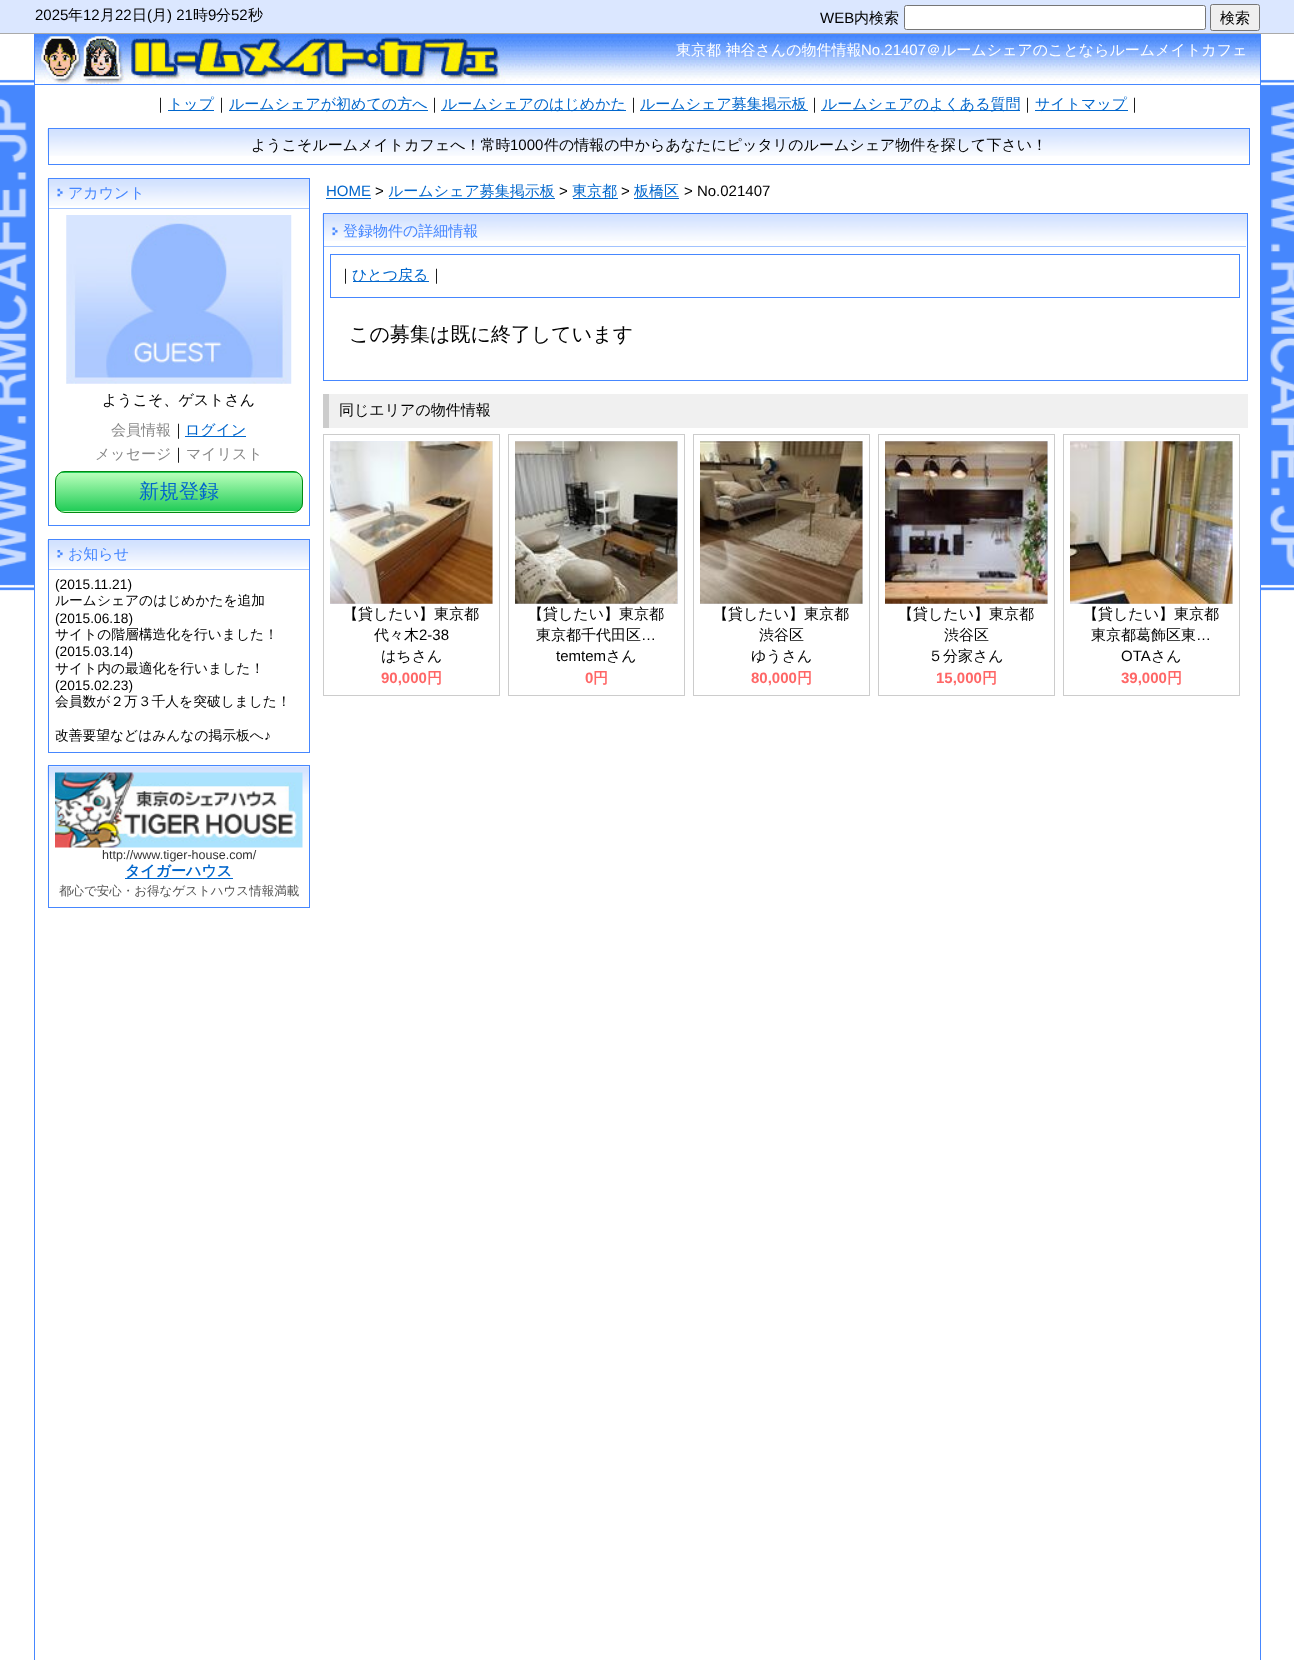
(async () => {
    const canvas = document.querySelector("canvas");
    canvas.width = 1294;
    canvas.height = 1660;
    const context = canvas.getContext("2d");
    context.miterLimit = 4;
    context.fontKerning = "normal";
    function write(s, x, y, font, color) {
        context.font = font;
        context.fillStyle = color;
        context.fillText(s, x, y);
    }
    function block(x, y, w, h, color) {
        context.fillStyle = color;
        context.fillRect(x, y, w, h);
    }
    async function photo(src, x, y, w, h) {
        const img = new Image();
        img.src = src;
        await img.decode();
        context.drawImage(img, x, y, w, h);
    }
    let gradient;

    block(0, 0, 1294, 1660, "rgb(255, 255, 255)");
    await photo("media/1.png", 0, 79, 1294, 512);
    block(0, 0, 1294, 33, "rgb(219, 231, 255)");
    block(0, 33, 1294, 1, "rgb(170, 170, 170)");
    write("2025", 35, 20, "15px Liberation Sans", "rgb(0, 0, 0)");
    write("年", 68, 20, "500 15px WenQuanYi Zen Hei", "rgb(0, 0, 0)");
    write("12", 83, 20, "15px Liberation Sans", "rgb(0, 0, 0)");
    write("月", 100, 20, "500 15px WenQuanYi Zen Hei", "rgb(0, 0, 0)");
    write("22", 115, 20, "15px Liberation Sans", "rgb(0, 0, 0)");
    write("日", 132, 20, "500 15px WenQuanYi Zen Hei", "rgb(0, 0, 0)");
    write("(", 147, 20, "15px Liberation Sans", "rgb(0, 0, 0)");
    write("月", 152, 20, "500 15px WenQuanYi Zen Hei", "rgb(0, 0, 0)");
    write(") 21", 167, 20, "15px Liberation Sans", "rgb(0, 0, 0)");
    write("時", 193, 20, "500 15px WenQuanYi Zen Hei", "rgb(0, 0, 0)");
    write("9", 208, 20, "15px Liberation Sans", "rgb(0, 0, 0)");
    write("分", 216, 20, "500 15px WenQuanYi Zen Hei", "rgb(0, 0, 0)");
    write("52", 231, 20, "15px Liberation Sans", "rgb(0, 0, 0)");
    write("秒", 248, 20, "500 15px WenQuanYi Zen Hei", "rgb(0, 0, 0)");
    write("WEB", 820, 23, "15px Liberation Sans", "rgb(0, 0, 0)");
    write("内検索", 854, 23, "500 15px WenQuanYi Zen Hei", "rgb(0, 0, 0)");
    context.fillStyle = "rgb(255, 255, 255)";
    context.beginPath();
    context.roundRect(904.5, 5.5, 301, 24, 2);
    context.fill();
    context.strokeStyle = "rgb(118, 118, 118)";
    context.stroke();
    context.fillStyle = "rgb(239, 239, 239)";
    context.beginPath();
    context.roundRect(1210.5, 4.5, 49, 26, 2);
    context.fill();
    context.stroke();
    write("検索", 1220, 23, "500 15px WenQuanYi Zen Hei", "rgb(0, 0, 0)");
    block(35, 81, 1225, 510, "rgb(255, 255, 255)");
    block(1260, 34, 1, 1626, "rgb(70, 135, 255)");
    block(34, 34, 1, 1626, "rgb(70, 135, 255)");
    await photo("media/2.png", 510, 34, 750, 47);
    block(35, 84, 1225, 1, "rgb(70, 135, 255)");
    await photo("media/3.png", 35, 34, 475, 50);
    write("東京都 神谷さんの物件情報", 676, 55, "500 15px WenQuanYi Zen Hei", "rgb(255, 255, 255)");
    write("No.21407", 861, 55, "15px Liberation Sans", "rgb(255, 255, 255)");
    write("＠ルームシェアのことならルームメイトカフェ", 926, 55, "500 15px WenQuanYi Zen Hei", "rgb(255, 255, 255)");
    write("｜", 153, 109, "500 15px WenQuanYi Zen Hei", "rgb(0, 0, 0)");
    block(168, 110, 46, 1, "rgb(0, 102, 204)");
    write("トップ", 168, 109, "500 15px WenQuanYi Zen Hei", "rgb(0, 102, 204)");
    write("｜", 214, 109, "500 15px WenQuanYi Zen Hei", "rgb(0, 0, 0)");
    block(229, 110, 199, 1, "rgb(0, 102, 204)");
    write("ルームシェアが初めての方へ", 229, 109, "500 15px WenQuanYi Zen Hei", "rgb(0, 102, 204)");
    write("｜", 427, 109, "500 15px WenQuanYi Zen Hei", "rgb(0, 0, 0)");
    block(441, 110, 185, 1, "rgb(0, 102, 204)");
    write("ルームシェアのはじめかた", 442, 109, "500 15px WenQuanYi Zen Hei", "rgb(0, 102, 204)");
    write("｜", 626, 109, "500 15px WenQuanYi Zen Hei", "rgb(0, 0, 0)");
    block(640, 110, 168, 1, "rgb(0, 102, 204)");
    write("ルームシェア募集掲示板", 640, 109, "500 15px WenQuanYi Zen Hei", "rgb(0, 102, 204)");
    write("｜", 807, 109, "500 15px WenQuanYi Zen Hei", "rgb(0, 0, 0)");
    block(821, 110, 199, 1, "rgb(0, 102, 204)");
    write("ルームシェアのよくある質問", 822, 109, "500 15px WenQuanYi Zen Hei", "rgb(0, 102, 204)");
    write("｜", 1020, 109, "500 15px WenQuanYi Zen Hei", "rgb(0, 0, 0)");
    block(1035, 110, 93, 1, "rgb(0, 102, 204)");
    write("サイトマップ", 1035, 109, "500 15px WenQuanYi Zen Hei", "rgb(0, 102, 204)");
    write("｜", 1127, 109, "500 15px WenQuanYi Zen Hei", "rgb(0, 0, 0)");
    await photo("media/4.png", 47, 128, 1202, 28);
    context.strokeStyle = "rgb(70, 135, 255)";
    context.strokeRect(48.5, 128.5, 1201, 36);
    write("ようこそルームメイトカフェへ！常時", 251, 150, "500 15px WenQuanYi Zen Hei", "rgb(0, 0, 0)");
    write("1000", 510, 150, "15px Liberation Sans", "rgb(0, 0, 0)");
    write("件の情報の中からあなたにピッタリのルームシェア物件を探して下さい！", 544, 150, "500 15px WenQuanYi Zen Hei", "rgb(0, 0, 0)");
    await photo("media/5.png", 47, 178, 262, 28);
    context.strokeRect(48.5, 178.5, 261, 347);
    await photo("media/6.png", 57, 188, 6, 9);
    block(49, 208, 260, 1, "rgb(162, 195, 255)");
    write("アカウント", 68, 198, "500 15px WenQuanYi Zen Hei", "rgb(70, 135, 255)");
    await photo("media/7.png", 66, 215, 226, 169);
    write("ようこそ、ゲストさん", 102, 405, "500 15px WenQuanYi Zen Hei", "rgb(0, 0, 0)");
    write("会員情報", 111, 435, "500 15px WenQuanYi Zen Hei", "rgb(136, 136, 136)");
    write("｜", 171, 435, "500 15px WenQuanYi Zen Hei", "rgb(0, 0, 0)");
    block(185, 436, 61, 1, "rgb(0, 102, 204)");
    write("ログイン", 185, 435, "500 15px WenQuanYi Zen Hei", "rgb(0, 102, 204)");
    write("メッセージ", 95, 459, "500 15px WenQuanYi Zen Hei", "rgb(136, 136, 136)");
    write("｜", 171, 459, "500 15px WenQuanYi Zen Hei", "rgb(0, 0, 0)");
    write("マイリスト", 186, 459, "500 15px WenQuanYi Zen Hei", "rgb(136, 136, 136)");
    context.save();
    context.beginPath();
    context.roundRect(55, 471, 248, 42, 10);
    context.clip();
    gradient = context.createLinearGradient(56, 434, 56, 473);
    gradient.addColorStop(0, "rgb(184, 255, 186)");
    gradient.addColorStop(1, "rgb(33, 204, 87)");
    context.fillStyle = gradient;
    context.fillRect(55, 471, 248, 2);
    gradient = context.createLinearGradient(56, 473, 56, 511);
    gradient.addColorStop(0, "rgb(184, 255, 186)");
    gradient.addColorStop(1, "rgb(33, 204, 87)");
    context.fillStyle = gradient;
    context.fillRect(55, 473, 248, 38);
    gradient = context.createLinearGradient(56, 511, 56, 550);
    gradient.addColorStop(0, "rgb(184, 255, 186)");
    gradient.addColorStop(1, "rgb(33, 204, 87)");
    context.fillStyle = gradient;
    context.fillRect(55, 511, 248, 2);
    context.restore();
    context.beginPath();
    context.roundRect(55.5, 471.5, 247, 41, 9.5);
    context.strokeStyle = "rgb(2, 138, 18)";
    context.stroke();
    write("新規登録", 139, 498, "500 20px WenQuanYi Zen Hei", "rgb(0, 102, 204)");
    await photo("media/8.png", 47, 540, 262, 27);
    context.strokeStyle = "rgb(70, 135, 255)";
    context.strokeRect(48.5, 539.5, 261, 213);
    await photo("media/9.png", 57, 550, 6, 8);
    block(49, 569, 260, 1, "rgb(162, 195, 255)");
    write("お知らせ", 68, 559, "500 15px WenQuanYi Zen Hei", "rgb(70, 135, 255)");
    write("(2015.11.21)", 55, 589, "13.75px Liberation Sans", "rgb(0, 0, 0)");
    write("ルームシェアのはじめかたを追加", 55, 605, "500 13.75px WenQuanYi Zen Hei", "rgb(0, 0, 0)");
    write("(2015.06.18)", 55, 623, "13.75px Liberation Sans", "rgb(0, 0, 0)");
    write("サイトの階層構造化を行いました！", 55, 639, "500 13.75px WenQuanYi Zen Hei", "rgb(0, 0, 0)");
    write("(2015.03.14)", 55, 656, "13.75px Liberation Sans", "rgb(0, 0, 0)");
    write("サイト内の最適化を行いました！", 55, 673, "500 13.75px WenQuanYi Zen Hei", "rgb(0, 0, 0)");
    write("(2015.02.23)", 55, 690, "13.75px Liberation Sans", "rgb(0, 0, 0)");
    write("会員数が２万３千人を突破しました！", 55, 706, "500 13.75px WenQuanYi Zen Hei", "rgb(0, 0, 0)");
    write("改善要望などはみんなの掲示板へ", 55, 740, "500 13.75px WenQuanYi Zen Hei", "rgb(0, 0, 0)");
    write("♪", 264, 740, "13.75px Liberation Sans", "rgb(0, 0, 0)");
    await photo("media/10.png", 47, 766, 262, 28);
    context.strokeRect(48.5, 765.5, 261, 142);
    await photo("media/11.png", 55, 772, 248, 76);
    write("http://www.tiger-house.com/", 102, 859, "12.5px Liberation Sans", "rgb(51, 51, 51)");
    block(125, 878, 108, 1, "rgb(0, 102, 204)");
    write("タイガーハウス", 125, 876, "bold 15px WenQuanYi Zen Hei", "rgb(0, 102, 204)");
    write("都心で安心・お得なゲストハウス情報満載", 59, 895, "500 12.5px WenQuanYi Zen Hei", "rgb(85, 85, 85)");
    write("HOME", 326, 196, "15px Liberation Sans", "rgb(0, 102, 204)");
    block(326, 198, 45, 1, "rgb(0, 102, 204)");
    write(">", 375, 196, "15px Liberation Sans", "rgb(0, 0, 0)");
    block(389, 198, 166, 1, "rgb(0, 102, 204)");
    write("ルームシェア募集掲示板", 388, 196, "500 15px WenQuanYi Zen Hei", "rgb(0, 102, 204)");
    write(">", 559, 196, "15px Liberation Sans", "rgb(0, 0, 0)");
    write("東京都", 572, 196, "500 15px WenQuanYi Zen Hei", "rgb(0, 102, 204)");
    block(573, 198, 45, 1, "rgb(0, 102, 204)");
    write(">", 621, 196, "15px Liberation Sans", "rgb(0, 0, 0)");
    write("板橋区", 634, 196, "500 15px WenQuanYi Zen Hei", "rgb(0, 102, 204)");
    block(634, 198, 45, 1, "rgb(0, 102, 204)");
    write("> No.021407", 684, 196, "15px Liberation Sans", "rgb(0, 0, 0)");
    await photo("media/12.png", 322, 213, 925, 28);
    context.strokeRect(323.5, 213.5, 924, 167);
    await photo("media/13.png", 332, 227, 6, 9);
    block(324, 246, 922, 1, "rgb(162, 195, 255)");
    write("登録物件の詳細情報", 343, 236, "500 15px WenQuanYi Zen Hei", "rgb(70, 135, 255)");
    context.strokeRect(330.5, 254.5, 909, 43);
    write("｜", 338, 280, "500 15px WenQuanYi Zen Hei", "rgb(0, 0, 0)");
    block(353, 281, 76, 1, "rgb(0, 102, 204)");
    write("ひとつ戻る", 352, 280, "500 15px WenQuanYi Zen Hei", "rgb(0, 102, 204)");
    write("｜", 429, 280, "500 15px WenQuanYi Zen Hei", "rgb(0, 0, 0)");
    write("この募集は既に終了しています", 349, 341, "500 20px WenQuanYi Zen Hei", "rgb(0, 0, 0)");
    block(329, 394, 919, 34, "rgb(240, 240, 240)");
    block(323, 394, 6, 34, "rgb(204, 204, 204)");
    write("同じエリアの物件情報", 339, 415, "500 15px WenQuanYi Zen Hei", "rgb(0, 0, 0)");
    context.strokeStyle = "rgb(204, 204, 204)";
    context.strokeRect(323.5, 434.5, 176, 261);
    block(330, 441, 163, 163, "rgb(224, 235, 255)");
    await photo("media/14.png", 330, 441, 163, 163);
    write("【貸したい】東京都", 343, 619, "500 15px WenQuanYi Zen Hei", "rgb(0, 0, 0)");
    write("代々木", 374, 640, "500 15px WenQuanYi Zen Hei", "rgb(0, 0, 0)");
    write("2-38", 419, 640, "15px Liberation Sans", "rgb(0, 0, 0)");
    write("はちさん", 381, 661, "500 15px WenQuanYi Zen Hei", "rgb(0, 0, 0)");
    write("90,000", 381, 683, "bold 15px Liberation Sans", "rgb(255, 102, 102)");
    write("円", 427, 683, "bold 15px WenQuanYi Zen Hei", "rgb(255, 102, 102)");
    context.strokeRect(508.5, 434.5, 176, 261);
    block(515, 441, 163, 163, "rgb(224, 235, 255)");
    await photo("media/15.png", 515, 441, 163, 163);
    write("【貸したい】東京都", 528, 619, "500 15px WenQuanYi Zen Hei", "rgb(0, 0, 0)");
    write("東京都千代田区", 536, 640, "500 15px WenQuanYi Zen Hei", "rgb(0, 0, 0)");
    write("…", 641, 640, "15px Liberation Sans", "rgb(0, 0, 0)");
    write("temtem", 556, 661, "15px Liberation Sans", "rgb(0, 0, 0)");
    write("さん", 606, 661, "500 15px WenQuanYi Zen Hei", "rgb(0, 0, 0)");
    write("0", 585, 683, "bold 15px Liberation Sans", "rgb(255, 102, 102)");
    write("円", 593, 683, "bold 15px WenQuanYi Zen Hei", "rgb(255, 102, 102)");
    context.strokeRect(693.5, 434.5, 176, 261);
    block(700, 441, 163, 163, "rgb(224, 235, 255)");
    await photo("media/16.png", 700, 441, 163, 163);
    write("【貸したい】東京都", 713, 619, "500 15px WenQuanYi Zen Hei", "rgb(0, 0, 0)");
    write("渋谷区", 759, 640, "500 15px WenQuanYi Zen Hei", "rgb(0, 0, 0)");
    write("ゆうさん", 751, 661, "500 15px WenQuanYi Zen Hei", "rgb(0, 0, 0)");
    write("80,000", 751, 683, "bold 15px Liberation Sans", "rgb(255, 102, 102)");
    write("円", 797, 683, "bold 15px WenQuanYi Zen Hei", "rgb(255, 102, 102)");
    context.strokeRect(878.5, 434.5, 176, 261);
    block(885, 441, 163, 163, "rgb(224, 235, 255)");
    await photo("media/17.png", 885, 441, 163, 163);
    write("【貸したい】東京都", 898, 619, "500 15px WenQuanYi Zen Hei", "rgb(0, 0, 0)");
    write("渋谷区", 944, 640, "500 15px WenQuanYi Zen Hei", "rgb(0, 0, 0)");
    write("５分家さん", 928, 661, "500 15px WenQuanYi Zen Hei", "rgb(0, 0, 0)");
    write("15,000", 936, 683, "bold 15px Liberation Sans", "rgb(255, 102, 102)");
    write("円", 982, 683, "bold 15px WenQuanYi Zen Hei", "rgb(255, 102, 102)");
    context.strokeRect(1063.5, 434.5, 176, 261);
    block(1070, 441, 163, 163, "rgb(224, 235, 255)");
    await photo("media/18.png", 1070, 441, 163, 163);
    write("【貸したい】東京都", 1083, 619, "500 15px WenQuanYi Zen Hei", "rgb(0, 0, 0)");
    write("東京都葛飾区東", 1091, 640, "500 15px WenQuanYi Zen Hei", "rgb(0, 0, 0)");
    write("…", 1196, 640, "15px Liberation Sans", "rgb(0, 0, 0)");
    write("OTA", 1121, 661, "15px Liberation Sans", "rgb(0, 0, 0)");
    write("さん", 1151, 661, "500 15px WenQuanYi Zen Hei", "rgb(0, 0, 0)");
    write("39,000", 1121, 683, "bold 15px Liberation Sans", "rgb(255, 102, 102)");
    write("円", 1167, 683, "bold 15px WenQuanYi Zen Hei", "rgb(255, 102, 102)");
})();
